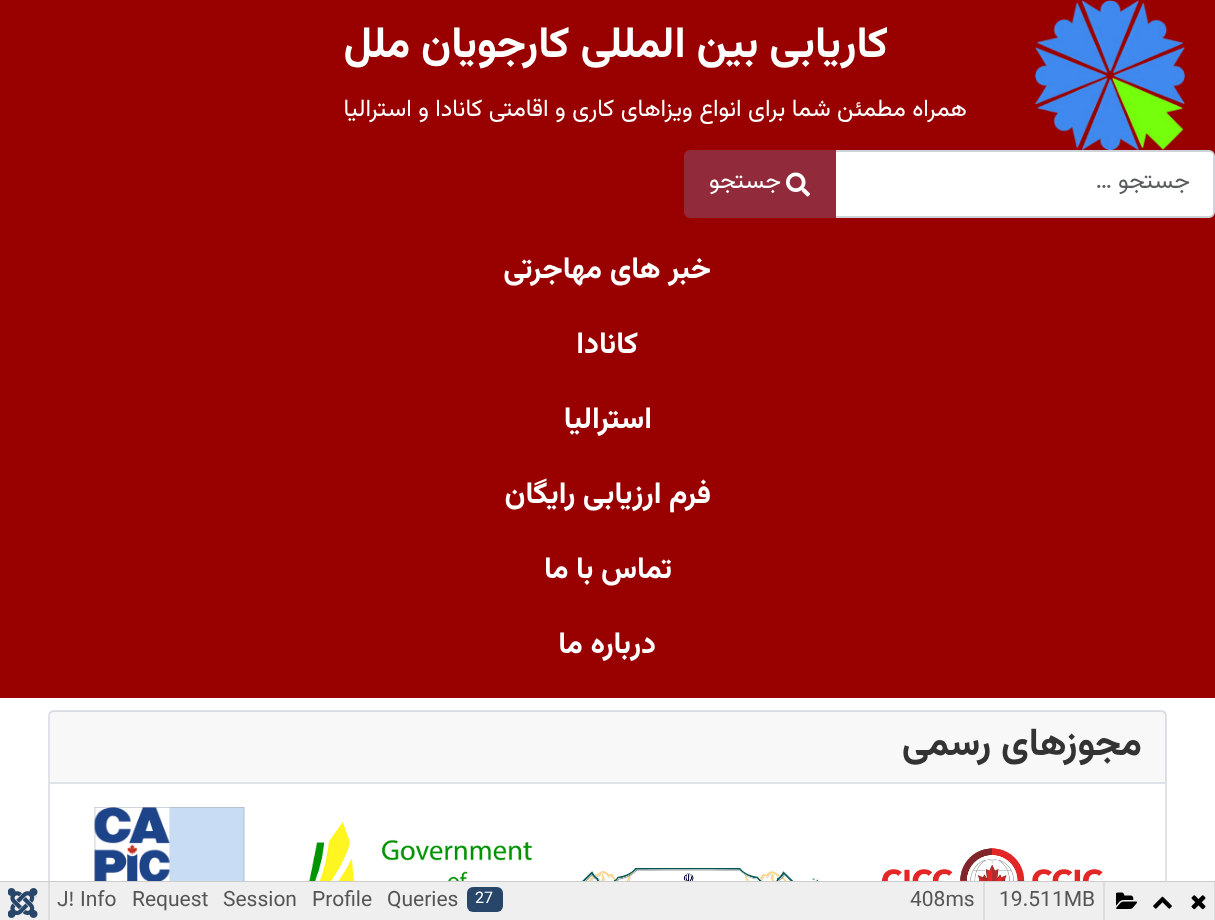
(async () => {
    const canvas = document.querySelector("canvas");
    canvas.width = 1215;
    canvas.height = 920;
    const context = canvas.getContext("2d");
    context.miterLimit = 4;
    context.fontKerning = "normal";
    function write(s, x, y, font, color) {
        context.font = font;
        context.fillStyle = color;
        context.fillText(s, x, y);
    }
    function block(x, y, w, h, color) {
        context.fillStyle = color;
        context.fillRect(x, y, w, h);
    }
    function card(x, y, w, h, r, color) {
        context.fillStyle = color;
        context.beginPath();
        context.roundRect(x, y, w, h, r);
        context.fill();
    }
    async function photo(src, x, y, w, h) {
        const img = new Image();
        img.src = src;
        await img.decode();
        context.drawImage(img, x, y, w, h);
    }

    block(0, 0, 1215, 920, "rgb(255, 255, 255)");
    block(0, 0, 1215, 698, "rgb(153, 0, 0)");
    await photo("media/1.png", 1035, 0, 150, 150);
    context.direction = "rtl";
    write("کاریابی بین المللی کارجویان ملل", 888, 57, "bold 43.25px Vazirmatn", "rgb(255, 255, 255)");
    write("همراه مطمئن شما برای انواع ویزاهای کاری و اقامتی کانادا و استرالیا", 967, 116, "24px Vazirmatn", "rgb(255, 255, 255)");
    context.beginPath();
    context.roundRect(835, 151, 379, 66, [0, 5, 5, 0]);
    context.fill();
    context.strokeStyle = "rgb(206, 212, 218)";
    context.lineWidth = 2;
    context.stroke();
    write("جستجو …", 1190, 188, "24px Vazirmatn", "rgb(89, 92, 95)");
    context.fillStyle = "rgb(145, 43, 59)";
    context.beginPath();
    context.roundRect(685, 151, 150, 66, [5, 0, 0, 5]);
    context.fill();
    context.strokeStyle = "rgb(145, 43, 59)";
    context.stroke();
    await photo("media/2.png", 786, 172, 24, 25);
    write("جستجو", 781, 188, "24px Vazirmatn", "rgb(255, 255, 255)");
    write("خبر های مهاجرتی", 711, 278, "bold 30px Vazirmatn", "rgb(255, 255, 255)");
    write("کانادا", 638, 353, "bold 30px Vazirmatn", "rgb(255, 255, 255)");
    write("استرالیا", 652, 428, "bold 30px Vazirmatn", "rgb(255, 255, 255)");
    write("فرم ارزیابی رایگان", 711, 503, "bold 30px Vazirmatn", "rgb(255, 255, 255)");
    write("تماس با ما", 672, 578, "bold 30px Vazirmatn", "rgb(255, 255, 255)");
    write("درباره ما", 656, 653, "bold 30px Vazirmatn", "rgb(255, 255, 255)");
    context.beginPath();
    context.roundRect(49, 711, 1117, 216, 5);
    context.strokeStyle = "rgb(223, 227, 231)";
    context.stroke();
    block(50, 711, 1116, 71, "rgba(34, 38, 42, 0.03)");
    block(50, 782, 1116, 2, "rgb(223, 227, 231)");
    write("مجوزهای رسمی", 1142, 755, "bold 38.5px Vazirmatn", "rgb(51, 51, 51)");
    await photo("media/3.png", 882, 848, 221, 33);
    await photo("media/4.png", 575, 867, 256, 14);
    await photo("media/5.png", 297, 822, 243, 59);
    await photo("media/6.png", 94, 807, 151, 74);
    block(0, 881, 1215, 1, "rgb(204, 204, 204)");
    block(50, 882, 1164, 38, "rgb(239, 239, 239)");
    await photo("media/7.png", 1191, 895, 15, 15);
    block(1214, 882, 1, 38, "rgb(221, 221, 221)");
    await photo("media/8.png", 1153, 896, 19, 13);
    await photo("media/9.png", 1116, 892, 21, 17);
    block(1103, 882, 2, 38, "rgb(221, 221, 221)");
    context.direction = "ltr";
    write("19.511MB", 999, 906, "21px Vazirmatn", "rgb(85, 85, 85)");
    block(983, 882, 2, 38, "rgb(221, 221, 221)");
    write("408ms", 910, 906, "21px Vazirmatn", "rgb(85, 85, 85)");
    card(467, 887, 36, 25, 6, "rgb(40, 70, 106)");
    write("27", 475, 903, "16px Vazirmatn", "rgb(255, 255, 255)");
    write("Queries", 387, 906, "21px Vazirmatn", "rgb(85, 85, 85)");
    write("Profile", 312, 906, "21px Vazirmatn", "rgb(85, 85, 85)");
    write("Session", 223, 906, "21px Vazirmatn", "rgb(85, 85, 85)");
    write("Request", 132, 906, "21px Vazirmatn", "rgb(85, 85, 85)");
    write("J! Info", 57, 906, "21px Vazirmatn", "rgb(85, 85, 85)");
    block(0, 882, 48, 38, "rgb(239, 239, 239)");
    await photo("media/10.png", 8, 888, 30, 30);
    block(48, 882, 2, 38, "rgb(221, 221, 221)");
})();
